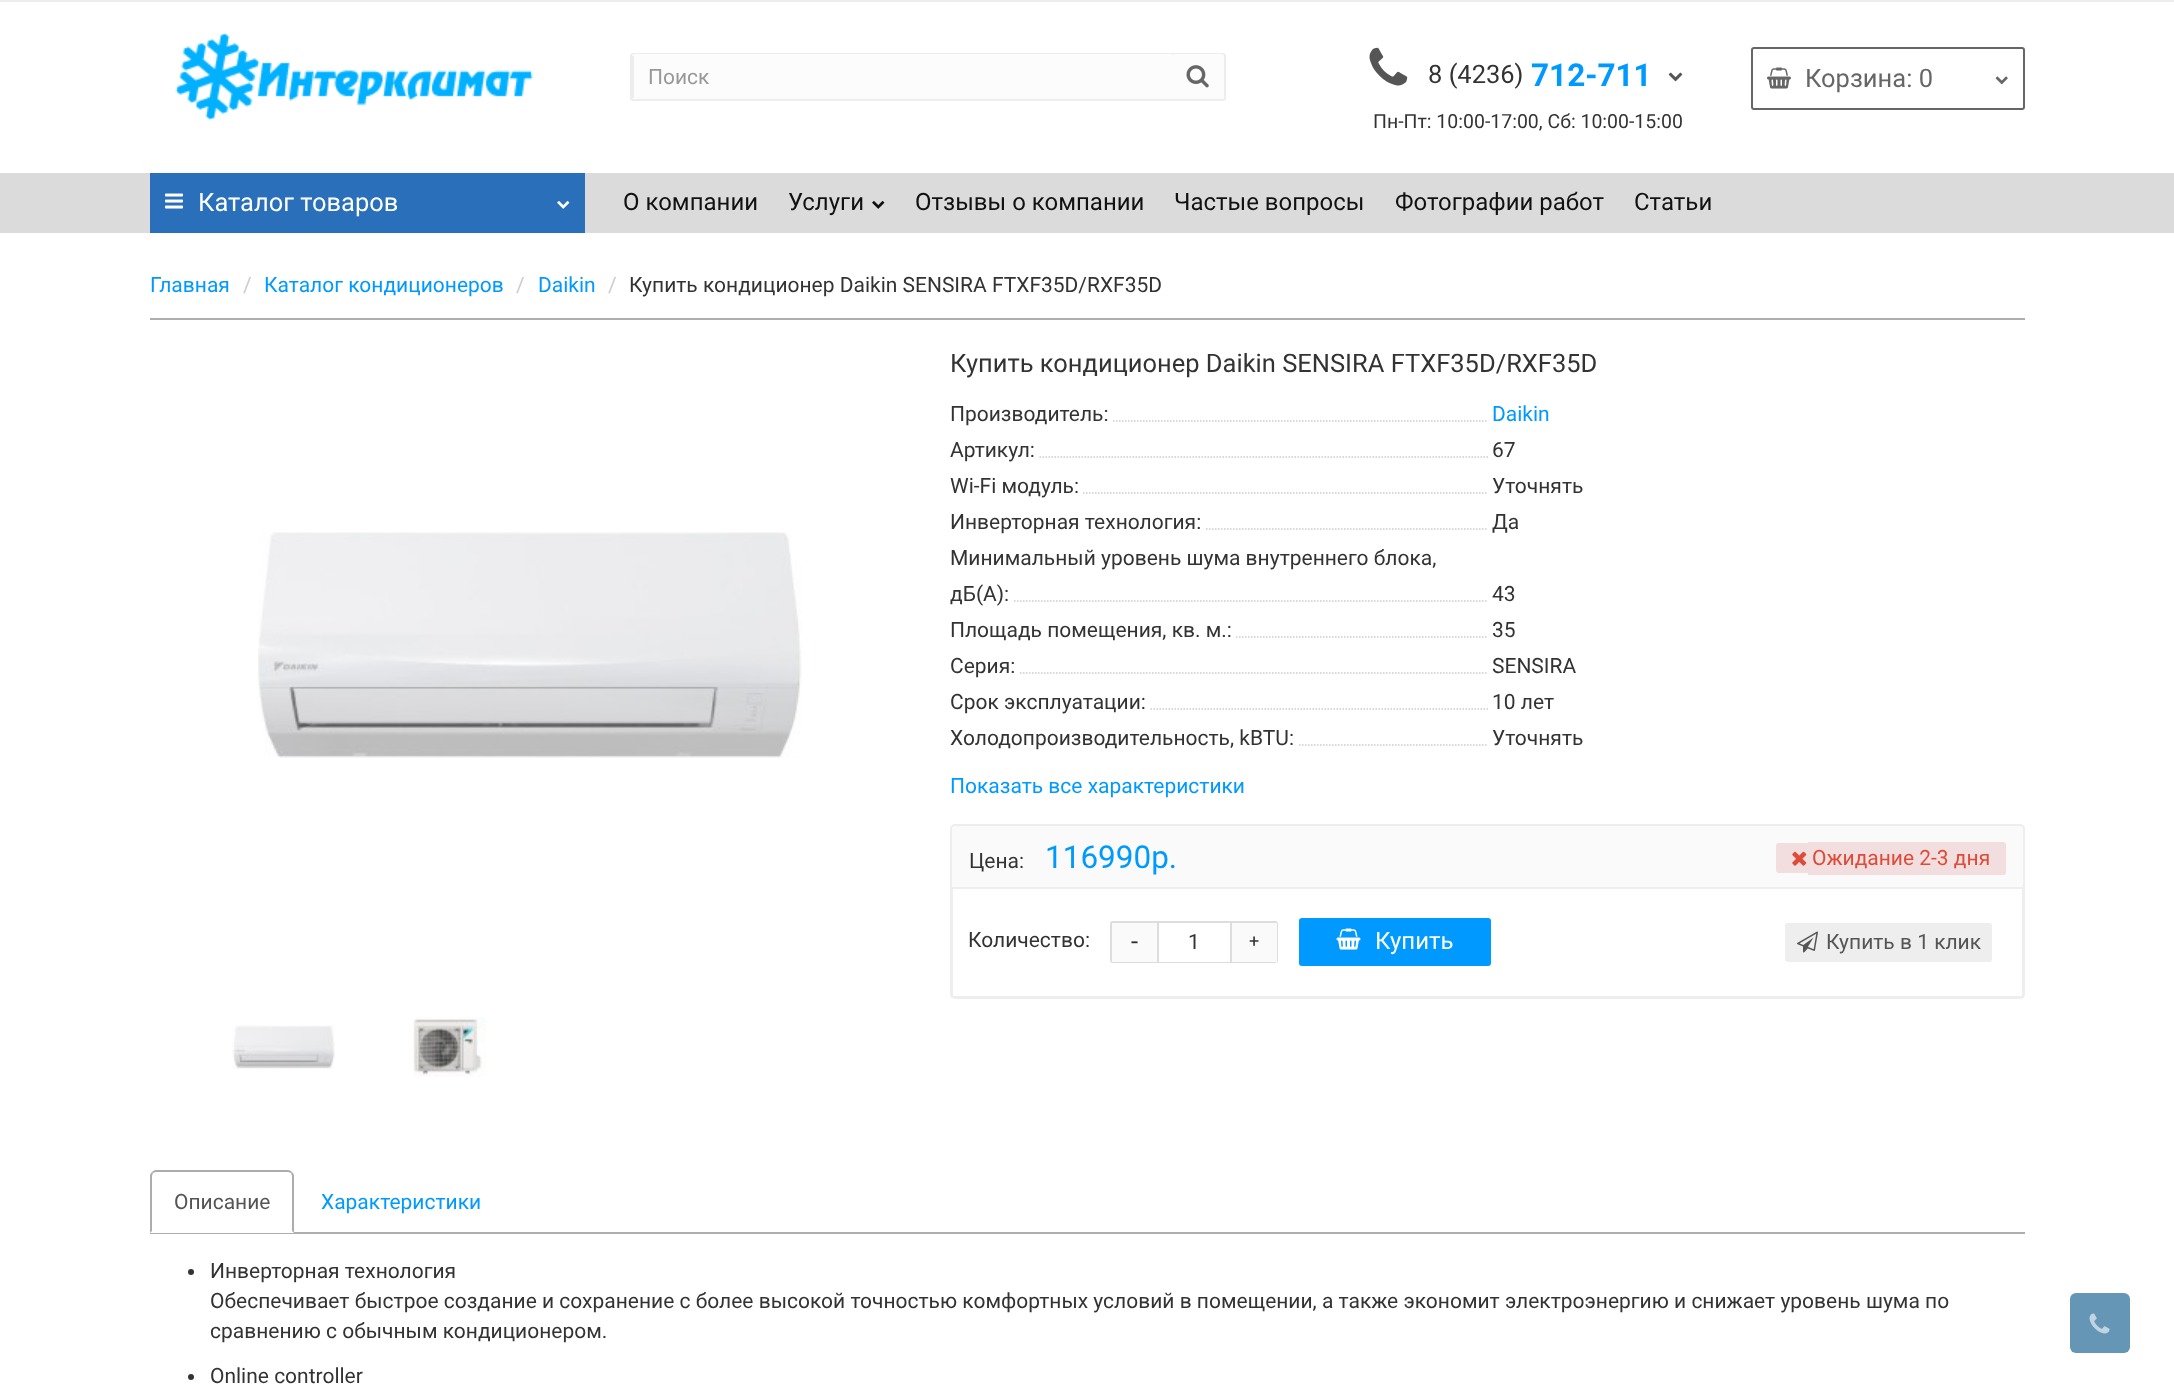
(async () => {
    const canvas = document.querySelector("canvas");
    canvas.width = 2174;
    canvas.height = 1397;
    const context = canvas.getContext("2d");
    context.miterLimit = 4;
    context.fontKerning = "normal";
    function write(s, x, y, font, color) {
        context.font = font;
        context.fillStyle = color;
        context.fillText(s, x, y);
    }
    function block(x, y, w, h, color) {
        context.fillStyle = color;
        context.fillRect(x, y, w, h);
    }
    function card(x, y, w, h, r, color) {
        context.fillStyle = color;
        context.beginPath();
        context.roundRect(x, y, w, h, r);
        context.fill();
    }
    async function photo(src, x, y, w, h) {
        const img = new Image();
        img.src = src;
        await img.decode();
        context.drawImage(img, x, y, w, h);
    }

    block(0, 0, 2174, 1397, "rgb(255, 255, 255)");
    block(0, 0, 2174, 2, "rgb(237, 237, 237)");
    await photo("media/1.png", 175, 32, 358, 89);
    context.fillStyle = "rgb(252, 252, 252)";
    context.beginPath();
    context.roundRect(631, 54, 594, 46, 2);
    context.fill();
    context.strokeStyle = "rgb(237, 237, 237)";
    context.lineWidth = 2;
    context.stroke();
    context.beginPath();
    context.roundRect(632, 54, 540, 45, [3, 0, 0, 3]);
    context.fill();
    block(632, 56, 2, 42, "rgb(237, 237, 237)");
    write("Поиск", 648, 84, "21px Roboto", "rgb(153, 153, 153)");
    card(1172, 54, 52, 45, 3, "rgb(252, 252, 252)");
    await photo("media/2.png", 1186, 65, 23, 23);
    await photo("media/3.png", 1369, 47, 39, 39);
    write("8 (4236)", 1428, 83, "25.5px Roboto", "rgb(51, 51, 51)");
    write("712-711", 1531, 86, "bold 31.5px Roboto", "rgb(0, 153, 255)");
    await photo("media/4.png", 1668, 72, 15, 10);
    write("Пн-Пт: 10:00-17:00, Сб: 10:00-15:00", 1373, 128, "19.5px Roboto", "rgb(51, 51, 51)");
    context.beginPath();
    context.roundRect(1752, 48, 272, 61, 2);
    context.strokeStyle = "rgb(102, 102, 102)";
    context.stroke();
    await photo("media/5.png", 1767, 67, 24, 22);
    write("Корзина: 0", 1805, 87, "25.5px Roboto", "rgb(102, 102, 102)");
    await photo("media/6.png", 1995, 76, 13, 9);
    block(0, 173, 2174, 60, "rgb(219, 219, 219)");
    block(150, 173, 435, 60, "rgb(42, 111, 186)");
    await photo("media/7.png", 165, 193, 18, 16);
    write("Каталог товаров", 198, 211, "25.5px Roboto", "rgb(255, 255, 255)");
    await photo("media/8.png", 557, 201, 13, 8);
    write("О компании", 623, 210, "24px Roboto", "rgb(17, 17, 17)");
    write("Услуги", 788, 210, "24px Roboto", "rgb(17, 17, 17)");
    await photo("media/9.png", 872, 201, 13, 8);
    write("Отзывы о компании", 915, 210, "24px Roboto", "rgb(17, 17, 17)");
    write("Частые вопросы", 1174, 210, "24px Roboto", "rgb(17, 17, 17)");
    write("Фотографии работ", 1395, 210, "24px Roboto", "rgb(17, 17, 17)");
    write("Статьи", 1634, 210, "24px Roboto", "rgb(17, 17, 17)");
    block(150, 318, 1875, 2, "rgb(173, 173, 173)");
    write("Главная", 150, 292, "21px Roboto", "rgb(0, 153, 255)");
    write("/", 243, 292, "21px Roboto", "rgb(204, 204, 204)");
    write("Каталог кондиционеров", 264, 292, "21px Roboto", "rgb(0, 153, 255)");
    write("/", 516, 292, "21px Roboto", "rgb(204, 204, 204)");
    write("Daikin", 538, 292, "21px Roboto", "rgb(0, 153, 255)");
    write("/", 608, 292, "21px Roboto", "rgb(204, 204, 204)");
    write("Купить кондиционер Daikin SENSIRA FTXF35D/RXF35D", 629, 292, "21px Roboto", "rgb(51, 51, 51)");
    await photo("media/10.png", 258, 532, 544, 226);
    await photo("media/11.png", 232, 1025, 103, 44);
    await photo("media/12.png", 413, 1017, 73, 60);
    write("Купить кондиционер Daikin SENSIRA FTXF35D/RXF35D", 950, 372, "25.5px Roboto", "rgb(51, 51, 51)");
    write("Производитель:", 950, 421, "21px Roboto", "rgb(51, 51, 51)");
    context.save();
    context.beginPath();
    context.rect(950, 396, 538, 36);
    context.clip();
    context.beginPath();
    context.moveTo(1113, 421);
    context.lineTo(1650, 421);
    context.strokeStyle = "rgb(204, 204, 204)";
    context.lineWidth = 1.5;
    context.setLineDash([1.5, 1.5]);
    context.stroke();
    context.restore();
    write("Daikin", 1492, 421, "21px Roboto", "rgb(0, 153, 255)");
    write("Артикул:", 950, 457, "21px Roboto", "rgb(51, 51, 51)");
    context.save();
    context.beginPath();
    context.rect(950, 432, 538, 36);
    context.clip();
    context.beginPath();
    context.moveTo(1039.5, 457);
    context.lineTo(1576.5, 457);
    context.strokeStyle = "rgb(204, 204, 204)";
    context.lineWidth = 1.5;
    context.setLineDash([1.5, 1.5]);
    context.stroke();
    context.restore();
    write("67", 1492, 457, "21px Roboto", "rgb(51, 51, 51)");
    write("Wi-Fi модуль:", 950, 493, "21px Roboto", "rgb(51, 51, 51)");
    context.save();
    context.beginPath();
    context.rect(950, 468, 538, 36);
    context.clip();
    context.beginPath();
    context.moveTo(1083, 493);
    context.lineTo(1621.5, 493);
    context.strokeStyle = "rgb(204, 204, 204)";
    context.lineWidth = 1.5;
    context.setLineDash([1.5, 1.5]);
    context.stroke();
    context.restore();
    write("Уточнять", 1492, 493, "21px Roboto", "rgb(51, 51, 51)");
    write("Инверторная технология:", 950, 529, "21px Roboto", "rgb(51, 51, 51)");
    context.save();
    context.beginPath();
    context.rect(950, 504, 538, 36);
    context.clip();
    context.beginPath();
    context.moveTo(1206, 529);
    context.lineTo(1743, 529);
    context.strokeStyle = "rgb(204, 204, 204)";
    context.lineWidth = 1.5;
    context.setLineDash([1.5, 1.5]);
    context.stroke();
    context.restore();
    write("Да", 1492, 529, "21px Roboto", "rgb(51, 51, 51)");
    write("Минимальный уровень шума внутреннего блока,", 950, 565, "21px Roboto", "rgb(51, 51, 51)");
    write("дБ(А):", 950, 601, "21px Roboto", "rgb(51, 51, 51)");
    context.save();
    context.beginPath();
    context.rect(950, 540, 538, 72);
    context.clip();
    context.beginPath();
    context.moveTo(1014, 601);
    context.lineTo(1551, 601);
    context.strokeStyle = "rgb(204, 204, 204)";
    context.lineWidth = 1.5;
    context.setLineDash([1.5, 1.5]);
    context.stroke();
    context.restore();
    write("43", 1492, 601, "21px Roboto", "rgb(51, 51, 51)");
    write("Площадь помещения, кв. м.:", 950, 637, "21px Roboto", "rgb(51, 51, 51)");
    context.save();
    context.beginPath();
    context.rect(950, 612, 538, 36);
    context.clip();
    context.beginPath();
    context.moveTo(1236, 637);
    context.lineTo(1774.5, 637);
    context.strokeStyle = "rgb(204, 204, 204)";
    context.lineWidth = 1.5;
    context.setLineDash([1.5, 1.5]);
    context.stroke();
    context.restore();
    write("35", 1492, 637, "21px Roboto", "rgb(51, 51, 51)");
    write("Серия:", 950, 673, "21px Roboto", "rgb(51, 51, 51)");
    context.save();
    context.beginPath();
    context.rect(950, 648, 538, 36);
    context.clip();
    context.beginPath();
    context.moveTo(1020, 673);
    context.lineTo(1557, 673);
    context.strokeStyle = "rgb(204, 204, 204)";
    context.lineWidth = 1.5;
    context.setLineDash([1.5, 1.5]);
    context.stroke();
    context.restore();
    write("SENSIRA", 1492, 673, "21px Roboto", "rgb(51, 51, 51)");
    write("Срок эксплуатации:", 950, 709, "21px Roboto", "rgb(51, 51, 51)");
    context.save();
    context.beginPath();
    context.rect(950, 684, 538, 36);
    context.clip();
    context.beginPath();
    context.moveTo(1150.5, 709);
    context.lineTo(1687.5, 709);
    context.strokeStyle = "rgb(204, 204, 204)";
    context.lineWidth = 1.5;
    context.setLineDash([1.5, 1.5]);
    context.stroke();
    context.restore();
    write("10 лет", 1492, 709, "21px Roboto", "rgb(51, 51, 51)");
    write("Холодопроизводительность, kBTU:", 950, 745, "21px Roboto", "rgb(51, 51, 51)");
    context.save();
    context.beginPath();
    context.rect(950, 720, 538, 36);
    context.clip();
    context.beginPath();
    context.moveTo(1299, 745);
    context.lineTo(1836, 745);
    context.strokeStyle = "rgb(204, 204, 204)";
    context.lineWidth = 1.5;
    context.setLineDash([1.5, 1.5]);
    context.stroke();
    context.restore();
    write("Уточнять", 1492, 745, "21px Roboto", "rgb(51, 51, 51)");
    write("Показать все характеристики", 950, 793, "21px Roboto", "rgb(0, 153, 255)");
    context.fillStyle = "rgb(250, 250, 250)";
    context.beginPath();
    context.roundRect(951, 825, 1073, 173, 4);
    context.fill();
    context.strokeStyle = "rgb(238, 238, 238)";
    context.stroke();
    write("Цена:", 969, 868, "21px Roboto", "rgb(51, 51, 51)");
    write("116990р.", 1045, 868, "31.5px Roboto", "rgb(0, 153, 255)");
    context.fillStyle = "rgb(242, 222, 222)";
    context.beginPath();
    context.roundRect(1776, 843, 32, 30, [3, 0, 0, 3]);
    context.fill();
    context.beginPath();
    context.roundRect(1808, 842, 198, 33, [0, 3, 3, 0]);
    context.fill();
    await photo("media/13.png", 1792, 851, 15, 15);
    write("Ожидание 2-3 дня", 1812, 865, "21px Roboto", "rgb(221, 75, 57)");
    context.fillStyle = "rgb(255, 255, 255)";
    context.beginPath();
    context.rect(952, 888, 1071, 109);
    context.fill();
    context.stroke();
    write("Количество:", 968, 947, "21px Roboto", "rgb(51, 51, 51)");
    context.beginPath();
    context.roundRect(1111, 922, 166, 40, 2);
    context.strokeStyle = "rgb(221, 221, 221)";
    context.stroke();
    block(1159, 961, 71, 1, "rgb(255, 255, 255)");
    block(1230, 923, 2, 39, "rgb(221, 221, 221)");
    block(1157, 923, 2, 39, "rgb(221, 221, 221)");
    write("1", 1188, 949, "21px Roboto", "rgb(51, 51, 51)");
    block(1112, 923, 45, 39, "rgb(250, 250, 250)");
    write("-", 1131, 950, "25.5px Roboto", "rgb(51, 51, 51)");
    block(1232, 923, 45, 39, "rgb(250, 250, 250)");
    write("+", 1249, 947, "18px Roboto", "rgb(51, 51, 51)");
    card(1299, 918, 192, 48, 3, "rgb(0, 153, 255)");
    await photo("media/14.png", 1336, 928, 25, 22);
    write("Купить", 1375, 949, "24px Roboto", "rgb(255, 255, 255)");
    context.fillStyle = "rgb(238, 238, 238)";
    context.beginPath();
    context.roundRect(1786.5, 924.5, 204, 36, 1.5);
    context.fill();
    context.strokeStyle = "rgb(238, 238, 238)";
    context.lineWidth = 3;
    context.stroke();
    await photo("media/15.png", 1797, 931, 21, 22);
    write("Купить в 1 клик", 1826, 949, "21px Roboto", "rgb(85, 85, 85)");
    block(150, 1232, 1875, 2, "rgb(173, 173, 173)");
    context.fillStyle = "rgb(255, 255, 255)";
    context.beginPath();
    context.roundRect(150, 1170, 144, 63, [6, 6, 0, 0]);
    context.fill();
    context.fillStyle = "rgb(173, 173, 173)";
    context.beginPath();
    context.moveTo(156, 1170);
    context.bezierCurveTo(154, 1170, 153, 1171, 152, 1172);
    context.lineTo(153, 1173);
    context.lineTo(156, 1172);
    context.lineTo(266, 1172);
    context.lineTo(288, 1172);
    context.lineTo(291, 1173);
    context.lineTo(292, 1172);
    context.bezierCurveTo(291, 1171, 290, 1170, 288, 1170);
    context.closePath();
    context.fill();
    context.beginPath();
    context.moveTo(294, 1233);
    context.lineTo(294, 1176);
    context.bezierCurveTo(294, 1174, 293, 1173, 292, 1172);
    context.lineTo(291, 1173);
    context.lineTo(292, 1176);
    context.lineTo(292, 1231);
    context.closePath();
    context.fill();
    context.beginPath();
    context.moveTo(150, 1233);
    context.lineTo(152, 1231);
    context.lineTo(152, 1176);
    context.lineTo(153, 1173);
    context.lineTo(152, 1172);
    context.bezierCurveTo(151, 1173, 150, 1174, 150, 1176);
    context.closePath();
    context.fill();
    write("Описание", 174, 1209, "21px Roboto", "rgb(85, 85, 85)");
    write("Характеристики", 321, 1209, "21px Roboto", "rgb(0, 153, 255)");
    context.fillStyle = "rgb(51, 51, 51)";
    context.beginPath();
    context.arc(191, 1272, 3, 0, Math.PI * 2);
    context.fill();
    write("Инверторная технология", 210, 1278, "21px Roboto", "rgb(51, 51, 51)");
    write("Обеспечивает быстрое создание и сохранение с более высокой точностью комфортных условий в помещении, а также экономит электроэнергию и снижает уровень шума по", 210, 1308, "21px Roboto", "rgb(51, 51, 51)");
    write("сравнению с обычным кондиционером.", 210, 1338, "21px Roboto", "rgb(51, 51, 51)");
    context.beginPath();
    context.arc(191, 1377, 3, 0, Math.PI * 2);
    context.fill();
    write("Online controller", 210, 1383, "21px Roboto", "rgb(51, 51, 51)");
    card(2070, 1293, 60, 60, 6, "rgb(102, 150, 182)");
    await photo("media/16.png", 2089, 1313, 21, 21);
})();
